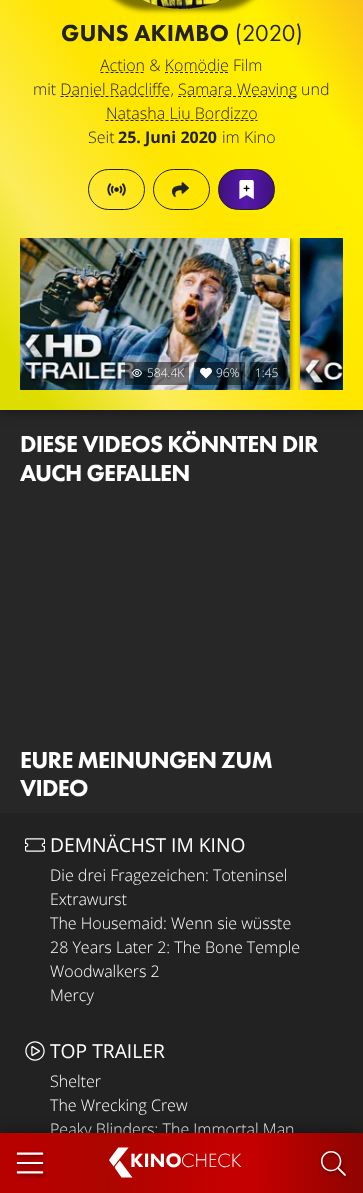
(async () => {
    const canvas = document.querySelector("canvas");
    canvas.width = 363;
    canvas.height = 1193;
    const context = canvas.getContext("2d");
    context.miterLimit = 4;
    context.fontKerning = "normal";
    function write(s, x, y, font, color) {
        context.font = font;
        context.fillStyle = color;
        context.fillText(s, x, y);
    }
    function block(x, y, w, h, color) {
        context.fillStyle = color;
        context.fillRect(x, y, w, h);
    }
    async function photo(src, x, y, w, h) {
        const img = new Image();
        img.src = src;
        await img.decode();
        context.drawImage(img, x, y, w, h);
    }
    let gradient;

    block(0, 0, 363, 1193, "rgb(40, 39, 39)");
    context.fillStyle = "rgba(0, 0, 0, 0.5)";
    context.filter = "blur(7.5px)";
    context.beginPath();
    context.rect(0, -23, 363, 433);
    context.fill();
    context.filter = "none";
    gradient = context.createLinearGradient(-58, 327, 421, -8);
    gradient.addColorStop(0.07, "rgb(222, 221, 0)");
    gradient.addColorStop(0.24, "rgb(252, 236, 90)");
    gradient.addColorStop(0.47, "rgb(255, 229, 0)");
    gradient.addColorStop(0.75, "rgb(255, 241, 0)");
    gradient.addColorStop(1, "rgb(249, 168, 37)");
    context.fillStyle = gradient;
    context.fillRect(0, 0, 363, 410);
    context.fillStyle = "rgba(0, 0, 0, 0.5)";
    context.filter = "blur(2.5px)";
    context.beginPath();
    context.roundRect(93, -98, 180, 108, 90);
    context.fill();
    context.filter = "none";
    await photo("media/1.png", 143, 0, 78, 9);
    write("GUNS AKIMBO", 61, 41, "24px 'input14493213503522'", "rgb(34, 34, 34)");
    write("(2020)", 235, 41, "24px Futura PT", "rgb(34, 34, 34)");
    write("Action & Komödie Film", 100, 71, "300 16px Open Sans", "rgb(34, 34, 34)");
    context.beginPath();
    context.moveTo(100.5, 72.5);
    context.lineTo(145.5, 72.5);
    context.strokeStyle = "rgb(34, 34, 34)";
    context.setLineDash([3, 2]);
    context.stroke();
    context.beginPath();
    context.moveTo(165, 72.5);
    context.lineTo(229, 72.5);
    context.stroke();
    write("mit Daniel Radcliffe,", 33, 95, "300 16px Open Sans", "rgb(34, 34, 34)");
    context.beginPath();
    context.moveTo(178, 96.5);
    context.lineTo(297, 96.5);
    context.stroke();
    write("Samara Weaving und", 178, 95, "300 16px Open Sans", "rgb(34, 34, 34)");
    context.beginPath();
    context.moveTo(60.5, 96.5);
    context.lineTo(170.5, 96.5);
    context.stroke();
    write("Natasha Liu Bordizzo", 106, 119, "300 16px Open Sans", "rgb(34, 34, 34)");
    context.beginPath();
    context.moveTo(105.5, 120.5);
    context.lineTo(257.5, 120.5);
    context.stroke();
    write("Seit", 88, 143, "300 16px Open Sans", "rgb(34, 34, 34)");
    write("25. Juni 2020", 118, 143, "bold 16px Open Sans", "rgb(34, 34, 34)");
    write("im Kino", 222, 143, "300 16px Open Sans", "rgb(34, 34, 34)");
    context.beginPath();
    context.roundRect(88.5, 169.5, 56, 40, 20);
    context.setLineDash([]);
    context.stroke();
    await photo("media/2.png", 107, 183, 19, 13);
    context.beginPath();
    context.roundRect(153.5, 169.5, 56, 40, 20);
    context.stroke();
    await photo("media/3.png", 172, 182, 17, 15);
    context.save();
    context.beginPath();
    context.roundRect(218, 169, 57, 41, 20.5);
    context.clip();
    gradient = context.createLinearGradient(218, 188, 275, 191);
    gradient.addColorStop(0, "rgb(62, 16, 126)");
    gradient.addColorStop(0.5, "rgb(87, 25, 170)");
    gradient.addColorStop(1, "rgb(62, 16, 126)");
    context.fillStyle = gradient;
    context.fillRect(219, 170, 55, 39);
    context.restore();
    context.beginPath();
    context.roundRect(218.5, 169.5, 56, 40, 20);
    context.stroke();
    await photo("media/4.png", 239, 180, 15, 19);
    context.save();
    context.beginPath();
    context.rect(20, 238, 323, 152);
    context.clip();
    context.fillStyle = "rgba(0, 0, 0, 0.5)";
    context.filter = "blur(2.5px)";
    context.beginPath();
    context.rect(21, 239, 270, 152);
    context.fill();
    context.filter = "none";
    context.restore();
    await photo("media/5.png", 20, 238, 270, 152);
    block(125, 362, 64, 23, "rgba(0, 0, 0, 0.5)");
    await photo("media/6.png", 132, 369, 10, 8);
    write("584.4K", 147, 377, "300 12px Open Sans", "rgb(255, 255, 255)");
    block(194, 362, 51, 23, "rgba(0, 0, 0, 0.5)");
    await photo("media/7.png", 200, 367, 12, 12);
    write("96%", 216, 377, "300 12px Open Sans", "rgb(255, 255, 255)");
    block(250, 362, 33, 23, "rgba(0, 0, 0, 0.5)");
    write("1:45", 255, 377, "300 12px Open Sans", "rgb(255, 255, 255)");
    context.save();
    context.beginPath();
    context.rect(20, 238, 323, 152);
    context.clip();
    context.fillStyle = "rgba(0, 0, 0, 0.5)";
    context.filter = "blur(2.5px)";
    context.beginPath();
    context.rect(301, 239, 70, 152);
    context.fill();
    context.filter = "none";
    context.restore();
    await photo("media/8.png", 300, 238, 43, 152);
    context.letterSpacing = "-0.75px";
    write("DIESE VIDEOS KÖNNTEN DIR", 20, 452, "24px 'input14493213503522'", "rgb(255, 255, 255)");
    write("AUCH GEFALLEN", 20, 481, "24px 'input14493213503522'", "rgb(255, 255, 255)");
    write("EURE MEINUNGEN ZUM", 20, 768, "24px 'input14493213503522'", "rgb(255, 255, 255)");
    write("VIDEO", 20, 796, "24px 'input14493213503522'", "rgb(255, 255, 255)");
    block(0, 813, 363, 320, "rgb(34, 34, 34)");
    await photo("media/9.png", 25, 838, 20, 14);
    context.letterSpacing = "0px";
    write("DEMNÄCHST IM KINO", 50, 852, "19.25px Open Sans", "rgb(255, 255, 255)");
    write("Die drei Fragezeichen: Toteninsel", 50, 881, "300 16px Open Sans", "rgb(255, 255, 255)");
    write("Extrawurst", 50, 905, "300 16px Open Sans", "rgb(255, 255, 255)");
    write("The Housemaid: Wenn sie wüsste", 50, 929, "300 16px Open Sans", "rgb(255, 255, 255)");
    write("28 Years Later 2: The Bone Temple", 50, 953, "300 16px Open Sans", "rgb(255, 255, 255)");
    write("Woodwalkers 2", 50, 977, "300 16px Open Sans", "rgb(255, 255, 255)");
    write("Mercy", 50, 1001, "300 16px Open Sans", "rgb(255, 255, 255)");
    await photo("media/10.png", 25, 1041, 20, 20);
    write("TOP TRAILER", 50, 1058, "19.25px Open Sans", "rgb(255, 255, 255)");
    write("Shelter", 50, 1087, "300 16px Open Sans", "rgb(255, 255, 255)");
    write("The Wrecking Crew", 50, 1111, "300 16px Open Sans", "rgb(255, 255, 255)");
    write("Peaky Blinders: The Immortal Man", 50, 1135, "300 16px Open Sans", "rgb(255, 255, 255)");
    context.fillStyle = "rgba(0, 0, 0, 0.5)";
    context.filter = "blur(7.5px)";
    context.beginPath();
    context.rect(0, 1133, 363, 60);
    context.fill();
    context.filter = "none";
    gradient = context.createLinearGradient(-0.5, 1160, 363, 1166);
    gradient.addColorStop(0.1, "rgb(183, 1, 0)");
    gradient.addColorStop(0.3, "rgb(172, 5, 0)");
    gradient.addColorStop(0.6, "rgb(196, 0, 0)");
    gradient.addColorStop(0.7, "rgb(196, 0, 0)");
    gradient.addColorStop(1, "rgb(143, 4, 0)");
    context.fillStyle = gradient;
    context.fillRect(0, 1133, 363, 60);
    await photo("media/11.png", 15, 1151, 32, 28);
    write("KINO", 130, 1167, "20px 'input14493213503522'", "rgb(255, 255, 255)");
    await photo("media/12.png", 109, 1147, 24, 31);
    write("CHECK", 181, 1167, "20px 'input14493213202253'", "rgb(255, 255, 255)");
    await photo("media/13.png", 319, 1150, 30, 30);
})();
